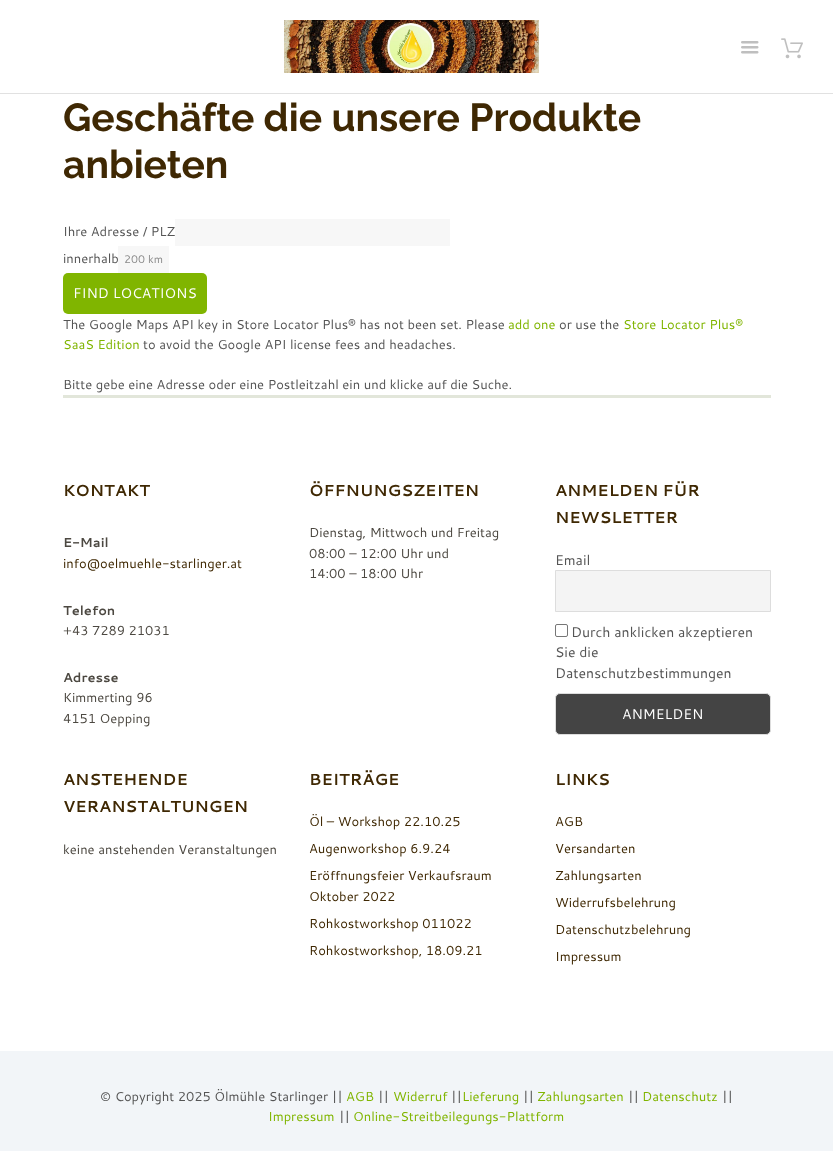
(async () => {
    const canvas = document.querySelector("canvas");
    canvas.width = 833;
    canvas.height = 1151;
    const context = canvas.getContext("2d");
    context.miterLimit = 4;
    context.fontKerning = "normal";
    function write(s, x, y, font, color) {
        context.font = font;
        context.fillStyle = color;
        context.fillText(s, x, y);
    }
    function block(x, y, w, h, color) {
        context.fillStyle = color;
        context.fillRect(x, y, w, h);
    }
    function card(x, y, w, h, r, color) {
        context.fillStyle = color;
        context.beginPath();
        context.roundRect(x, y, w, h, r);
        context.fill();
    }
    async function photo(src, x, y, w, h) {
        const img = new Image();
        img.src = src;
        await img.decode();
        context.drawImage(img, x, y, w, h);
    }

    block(0, 0, 833, 1151, "rgb(255, 255, 255)");
    await photo("media/1.png", 284, 20, 255, 53);
    await photo("media/2.png", 741, 41, 18, 13);
    await photo("media/3.png", 781, 38, 22, 21);
    block(0, 93, 833, 1, "rgb(225, 225, 225)");
    write("Geschäfte die unsere Produkte", 63, 131, "bold 39px Raleway", "rgb(63, 40, 3)");
    write("anbieten", 63, 178, "bold 39px Raleway", "rgb(63, 40, 3)");
    write("Ihre Adresse / PLZ", 63, 236, "13px Cantarell", "rgb(85, 85, 85)");
    block(175, 219, 275, 27, "rgb(247, 247, 247)");
    write("innerhalb", 63, 263, "13px Cantarell", "rgb(85, 85, 85)");
    block(118, 246, 51, 27, "rgb(247, 247, 247)");
    write("200 km", 124, 263, "11px Cantarell", "rgb(138, 138, 138)");
    card(63, 273, 144, 41, 5, "rgb(128, 181, 0)");
    write("FIND LOCATIONS", 73, 298, "14px Cantarell", "rgb(255, 255, 255)");
    write("The Google Maps API key in Store Locator Plus® has not been set. Please", 63, 329, "13px Cantarell", "rgb(85, 85, 85)");
    write("add one", 508, 329, "13px Cantarell", "rgb(128, 181, 0)");
    write("or use the", 559, 329, "13px Cantarell", "rgb(85, 85, 85)");
    write("Store Locator Plus®", 623, 329, "13px Cantarell", "rgb(128, 181, 0)");
    write("SaaS Edition", 63, 349, "13px Cantarell", "rgb(128, 181, 0)");
    write("to avoid the Google API license fees and headaches.", 143, 349, "13px Cantarell", "rgb(85, 85, 85)");
    write("Bitte gebe eine Adresse oder eine Postleitzahl ein und klicke auf die Suche.", 63, 389, "13px Cantarell", "rgb(85, 85, 85)");
    block(63, 395, 708, 3, "rgb(226, 230, 218)");
    write("KONTAKT", 63, 496, "bold 16px Cantarell", "rgb(63, 40, 3)");
    write("E-Mail", 63, 547, "bold 13px Cantarell", "rgb(76, 72, 65)");
    write("info@oelmuehle-starlinger.at", 63, 568, "13px Cantarell", "rgb(63, 40, 3)");
    write("Telefon", 63, 615, "bold 13px Cantarell", "rgb(76, 72, 65)");
    write("+43 7289 21031", 63, 635, "13px Cantarell", "rgb(76, 72, 65)");
    write("Adresse", 63, 682, "bold 13px Cantarell", "rgb(76, 72, 65)");
    write("Kimmerting 96", 63, 702, "13px Cantarell", "rgb(76, 72, 65)");
    write("4151 Oepping", 63, 723, "13px Cantarell", "rgb(76, 72, 65)");
    write("ÖFFNUNGSZEITEN", 309, 496, "bold 16px Cantarell", "rgb(63, 40, 3)");
    write("Dienstag, Mittwoch und Freitag", 309, 537, "13px Cantarell", "rgb(76, 72, 65)");
    write("08:00 – 12:00 Uhr und", 309, 558, "13px Cantarell", "rgb(76, 72, 65)");
    write("14:00 – 18:00 Uhr", 309, 578, "13px Cantarell", "rgb(76, 72, 65)");
    write("ANMELDEN FÜR", 555, 496, "bold 16px Cantarell", "rgb(63, 40, 3)");
    write("NEWSLETTER", 555, 523, "bold 16px Cantarell", "rgb(63, 40, 3)");
    write("Email", 555, 565, "14px Cantarell", "rgb(85, 85, 85)");
    context.fillStyle = "rgb(244, 244, 244)";
    context.beginPath();
    context.rect(555.5, 570.5, 215, 41);
    context.fill();
    context.strokeStyle = "rgb(221, 221, 221)";
    context.stroke();
    context.beginPath();
    context.roundRect(555.5, 624.5, 12, 12, 1.5);
    context.strokeStyle = "rgb(118, 118, 118)";
    context.stroke();
    write("Durch anklicken akzeptieren", 571, 637, "14px Cantarell", "rgb(85, 85, 85)");
    write("Sie die", 555, 657, "14px Cantarell", "rgb(85, 85, 85)");
    write("Datenschutzbestimmungen", 555, 678, "14px Cantarell", "rgb(85, 85, 85)");
    context.fillStyle = "rgb(68, 68, 68)";
    context.beginPath();
    context.roundRect(555.5, 693.5, 215, 41, 4.5);
    context.fill();
    context.strokeStyle = "rgb(221, 221, 221)";
    context.stroke();
    write("ANMELDEN", 622, 719, "14px Cantarell", "rgb(255, 255, 255)");
    write("ANSTEHENDE", 63, 785, "bold 16px Cantarell", "rgb(63, 40, 3)");
    write("VERANSTALTUNGEN", 63, 812, "bold 16px Cantarell", "rgb(63, 40, 3)");
    write("keine anstehenden Veranstaltungen", 63, 854, "13px Cantarell", "rgb(76, 72, 65)");
    write("BEITRÄGE", 309, 785, "bold 16px Cantarell", "rgb(63, 40, 3)");
    write("Öl – Workshop 22.10.25", 309, 826, "13px Cantarell", "rgb(63, 40, 3)");
    write("Augenworkshop 6.9.24", 309, 853, "13px Cantarell", "rgb(63, 40, 3)");
    write("Eröffnungsfeier Verkaufsraum", 309, 880, "13px Cantarell", "rgb(63, 40, 3)");
    write("Oktober 2022", 309, 901, "13px Cantarell", "rgb(63, 40, 3)");
    write("Rohkostworkshop 011022", 309, 928, "13px Cantarell", "rgb(63, 40, 3)");
    write("Rohkostworkshop, 18.09.21", 309, 955, "13px Cantarell", "rgb(63, 40, 3)");
    write("LINKS", 555, 785, "bold 16px Cantarell", "rgb(63, 40, 3)");
    write("AGB", 555, 826, "13px Cantarell", "rgb(63, 40, 3)");
    write("Versandarten", 555, 853, "13px Cantarell", "rgb(63, 40, 3)");
    write("Zahlungsarten", 555, 880, "13px Cantarell", "rgb(63, 40, 3)");
    write("Widerrufsbelehrung", 555, 907, "13px Cantarell", "rgb(63, 40, 3)");
    write("Datenschutzbelehrung", 555, 934, "13px Cantarell", "rgb(63, 40, 3)");
    write("Impressum", 555, 961, "13px Cantarell", "rgb(63, 40, 3)");
    block(0, 1051, 833, 100, "rgb(242, 245, 248)");
    write("© Copyright 2025 Ölmühle Starlinger ||", 100, 1101, "13px Cantarell", "rgb(85, 85, 85)");
    write("AGB", 346, 1101, "13px Cantarell", "rgb(128, 181, 0)");
    write("||", 378, 1101, "13px Cantarell", "rgb(85, 85, 85)");
    write("Widerruf", 393, 1101, "13px Cantarell", "rgb(128, 181, 0)");
    write("||", 451, 1101, "13px Cantarell", "rgb(85, 85, 85)");
    write("Lieferung", 462, 1101, "13px Cantarell", "rgb(128, 181, 0)");
    write("||", 523, 1101, "13px Cantarell", "rgb(85, 85, 85)");
    write("Zahlungsarten", 537, 1101, "13px Cantarell", "rgb(128, 181, 0)");
    write("||", 628, 1101, "13px Cantarell", "rgb(85, 85, 85)");
    write("Datenschutz", 642, 1101, "13px Cantarell", "rgb(128, 181, 0)");
    write("||", 722, 1101, "13px Cantarell", "rgb(85, 85, 85)");
    write("Impressum", 268, 1121, "13px Cantarell", "rgb(128, 181, 0)");
    write("||", 339, 1121, "13px Cantarell", "rgb(85, 85, 85)");
    write("Online-Streitbeilegungs-Plattform", 353, 1121, "13px Cantarell", "rgb(128, 181, 0)");
})();
